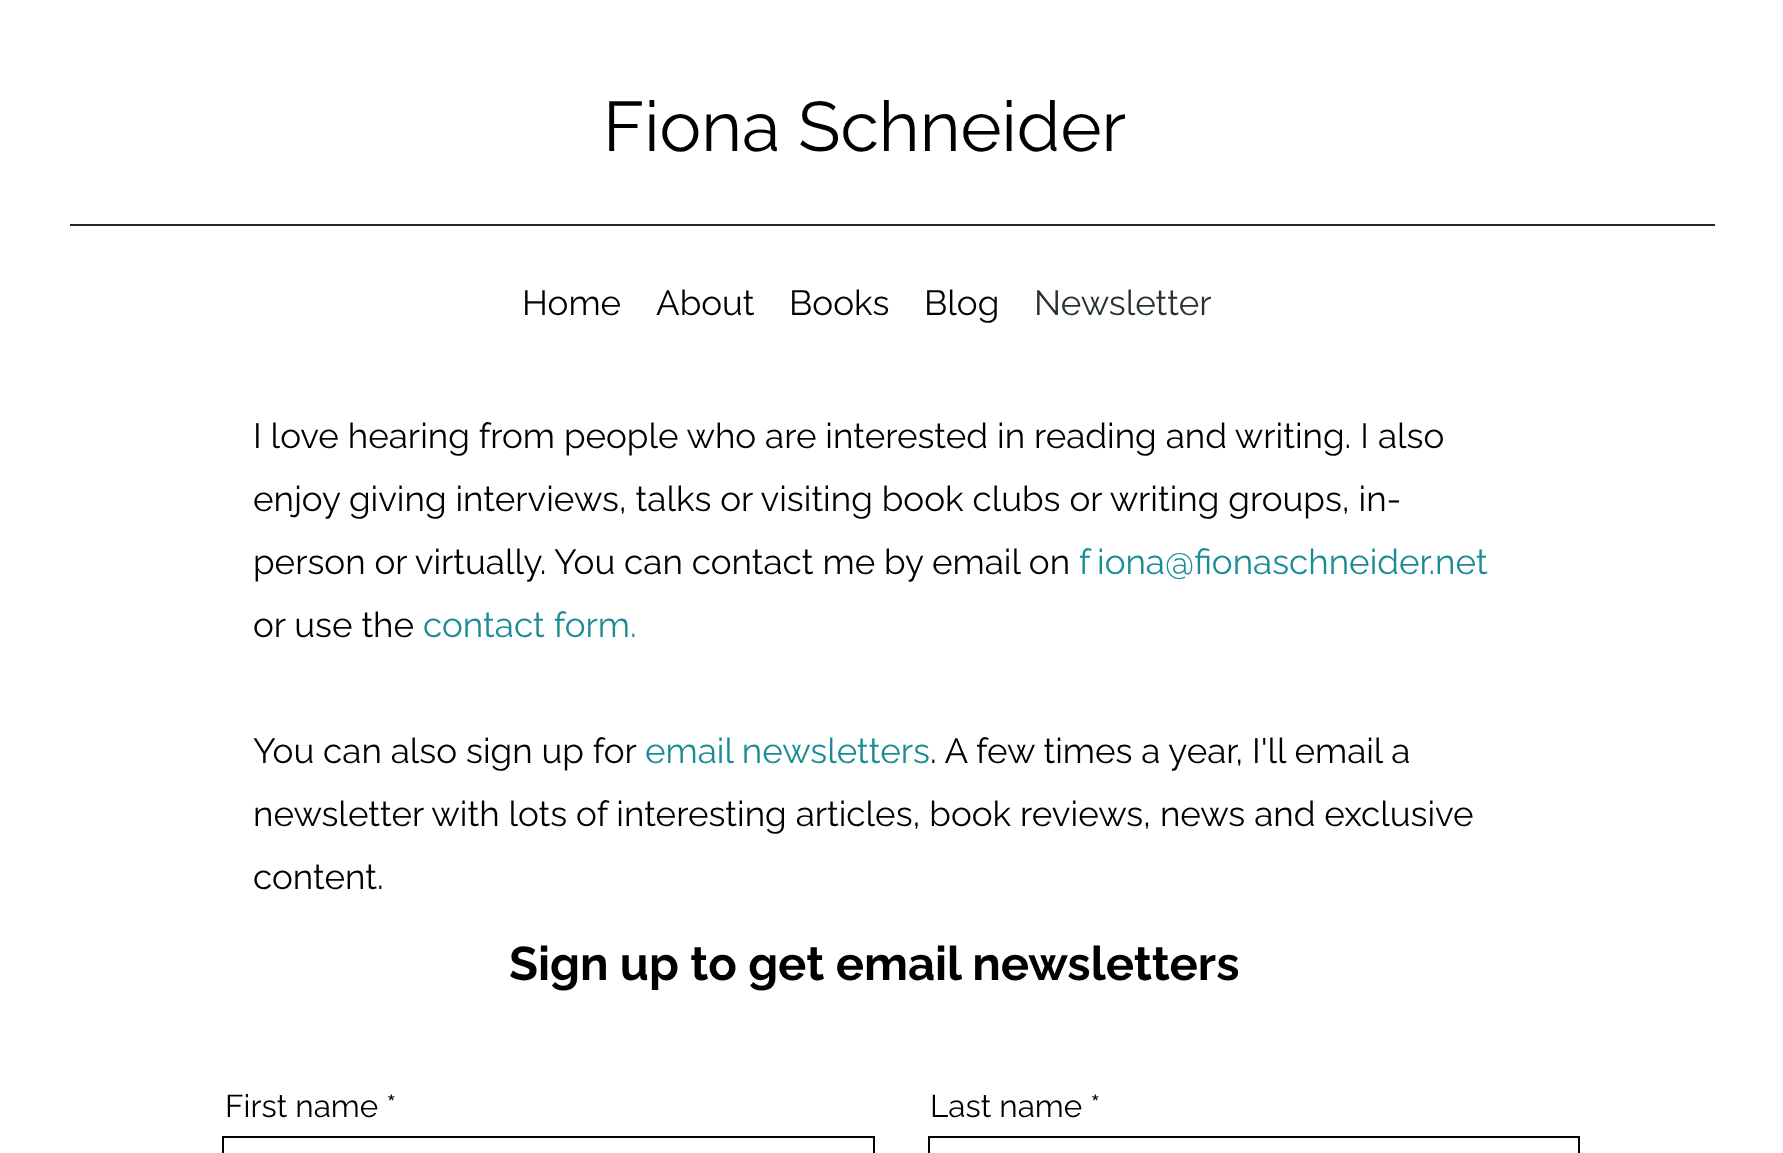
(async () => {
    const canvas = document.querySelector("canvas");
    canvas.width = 1783;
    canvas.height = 1153;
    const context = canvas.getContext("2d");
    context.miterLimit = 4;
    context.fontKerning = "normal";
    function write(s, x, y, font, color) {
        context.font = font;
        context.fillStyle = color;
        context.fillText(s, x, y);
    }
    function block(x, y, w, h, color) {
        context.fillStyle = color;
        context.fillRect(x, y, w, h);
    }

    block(0, 0, 1783, 1153, "rgb(255, 255, 255)");
    write("Fiona Schneider", 603, 151, "70px Raleway", "rgb(0, 0, 0)");
    block(70, 224, 1645, 2, "rgb(38, 38, 38)");
    write("Home", 522, 315, "35px Raleway", "rgb(0, 0, 0)");
    write("About", 656, 315, "35px Raleway", "rgb(0, 0, 0)");
    write("Books", 789, 315, "35px Raleway", "rgb(0, 0, 0)");
    write("Blog", 924, 315, "35px Raleway", "rgb(0, 0, 0)");
    write("Newsletter", 1034, 315, "35px Raleway", "rgb(40, 50, 50)");
    write("I love hearing from people who are interested in reading and writing.", 253, 448, "35px Raleway", "rgb(0, 0, 0)");
    write("I", 1360, 448, "300 35px 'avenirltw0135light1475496'", "rgb(0, 0, 0)");
    write("also", 1378, 448, "35px Raleway", "rgb(0, 0, 0)");
    write("enjoy giving interviews, talks or visiting book clubs or writing groups, in-", 253, 511, "35px Raleway", "rgb(0, 0, 0)");
    write("person or virtually.", 253, 574, "35px Raleway", "rgb(0, 0, 0)");
    write("You can contact me by email on", 554, 574, "35px Raleway", "rgb(0, 0, 0)");
    write("f", 1079, 574, "35px Raleway", "rgb(26, 140, 150)");
    write("iona@fionaschneider.net", 1097, 574, "35px Raleway", "rgb(26, 140, 150)");
    write("or use the", 253, 637, "35px Raleway", "rgb(0, 0, 0)");
    write("contact form.", 423, 637, "35px Raleway", "rgb(26, 140, 150)");
    write("You can also sign up for", 253, 763, "35px Raleway", "rgb(0, 0, 0)");
    write("email newsletters", 645, 763, "35px Raleway", "rgb(26, 140, 150)");
    write(". A few times a year, I'll email a", 930, 763, "35px Raleway", "rgb(0, 0, 0)");
    write("newsletter with lots of interesting articles, book reviews, news and exclusive", 253, 826, "35px Raleway", "rgb(0, 0, 0)");
    write("content.", 253, 889, "35px Raleway", "rgb(0, 0, 0)");
    write("Sign up to get email newsletters", 509, 980, "bold 47.25px Raleway", "rgb(0, 0, 0)");
    write("First name *", 225, 1117, "31.5px Raleway", "rgb(0, 0, 0)");
    context.strokeStyle = "rgb(0, 0, 0)";
    context.lineWidth = 2;
    context.strokeRect(223, 1137, 651, 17);
    write("Last name *", 930, 1117, "31.5px Raleway", "rgb(0, 0, 0)");
    context.strokeRect(929, 1137, 650, 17);
})();
